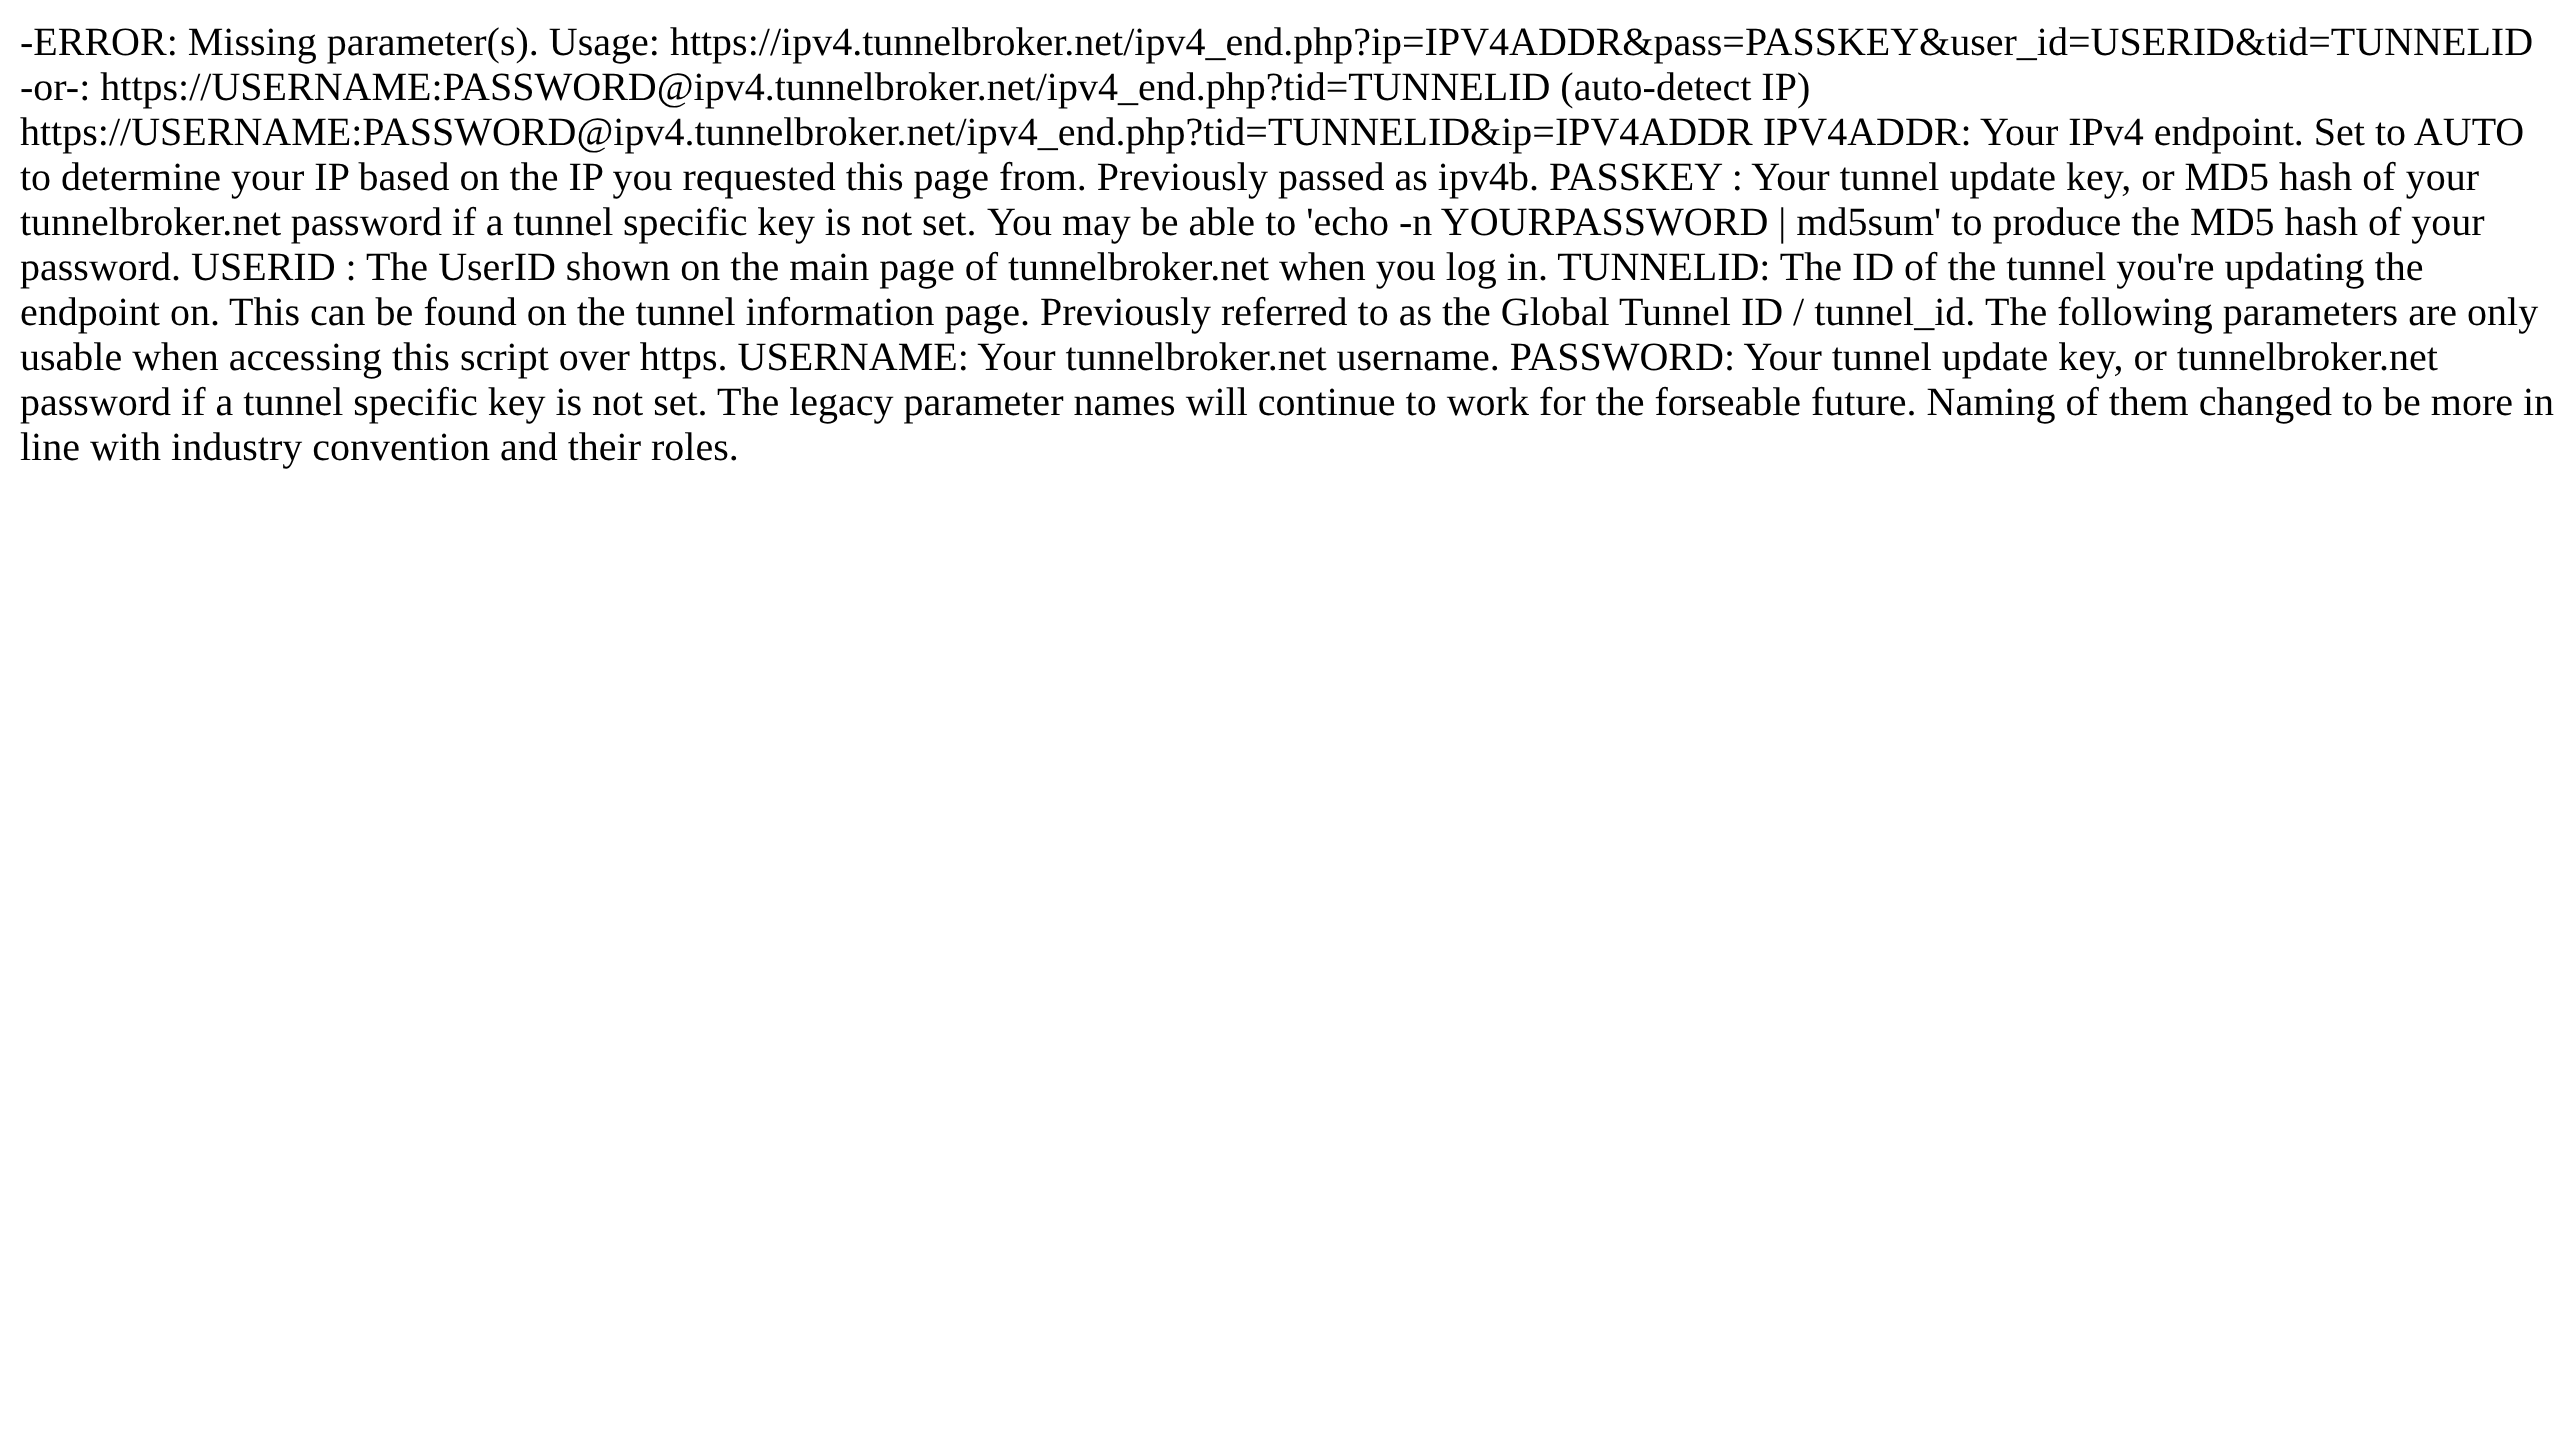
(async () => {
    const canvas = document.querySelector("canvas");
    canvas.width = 2573;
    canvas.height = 1443;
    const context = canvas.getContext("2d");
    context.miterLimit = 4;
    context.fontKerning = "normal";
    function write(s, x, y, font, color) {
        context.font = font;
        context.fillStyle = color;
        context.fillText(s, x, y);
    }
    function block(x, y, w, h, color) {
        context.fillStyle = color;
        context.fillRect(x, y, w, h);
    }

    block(0, 0, 2573, 1443, "rgb(255, 255, 255)");
    write("-ERROR: Missing parameter(s). Usage: https://ipv4.tunnelbroker.net/ipv4_end.php?ip=IPV4ADDR&pass=PASSKEY&user_id=USERID&tid=TUNNELID", 20, 55, "40px Liberation Serif", "rgb(0, 0, 0)");
    write("-or-: https://USERNAME:PASSWORD@ipv4.tunnelbroker.net/ipv4_end.php?tid=TUNNELID (auto-detect IP)", 20, 100, "40px Liberation Serif", "rgb(0, 0, 0)");
    write("https://USERNAME:PASSWORD@ipv4.tunnelbroker.net/ipv4_end.php?tid=TUNNELID&ip=IPV4ADDR IPV4ADDR: Your IPv4 endpoint. Set to AUTO", 20, 145, "40px Liberation Serif", "rgb(0, 0, 0)");
    write("to determine your IP based on the IP you requested this page from. Previously passed as ipv4b. PASSKEY : Your tunnel update key, or MD5 hash of your", 20, 190, "40px Liberation Serif", "rgb(0, 0, 0)");
    context.wordSpacing = "-0.25px";
    write("tunnelbroker.net password if a tunnel specific key is not set.", 20, 235, "40px Liberation Serif", "rgb(0, 0, 0)");
    context.wordSpacing = "0px";
    write("You may be able to 'echo -n YOURPASSWORD | md5sum' to produce the MD5 hash of your", 987, 235, "40px Liberation Serif", "rgb(0, 0, 0)");
    write("password. USERID : The UserID shown on the main page of tunnelbroker.net when you log in. TUNNELID: The ID of the tunnel you're updating the", 20, 280, "40px Liberation Serif", "rgb(0, 0, 0)");
    write("endpoint on.", 20, 325, "40px Liberation Serif", "rgb(0, 0, 0)");
    write("This can be found on the tunnel information page. Previously referred to as the Global Tunnel ID / tunnel_id.", 229, 325, "40px Liberation Serif", "rgb(0, 0, 0)");
    write("The following parameters are only", 1985, 325, "40px Liberation Serif", "rgb(0, 0, 0)");
    write("usable when accessing this script over https. USERNAME: Your tunnelbroker.net username. PASSWORD: Your tunnel update key, or tunnelbroker.net", 20, 370, "40px Liberation Serif", "rgb(0, 0, 0)");
    write("password if a tunnel specific key is not set.", 20, 415, "40px Liberation Serif", "rgb(0, 0, 0)");
    write("The legacy parameter names will continue to work for the forseable future. Naming of them changed to be more in", 717, 415, "40px Liberation Serif", "rgb(0, 0, 0)");
    write("line with industry convention and their roles.", 20, 460, "40px Liberation Serif", "rgb(0, 0, 0)");
})();
